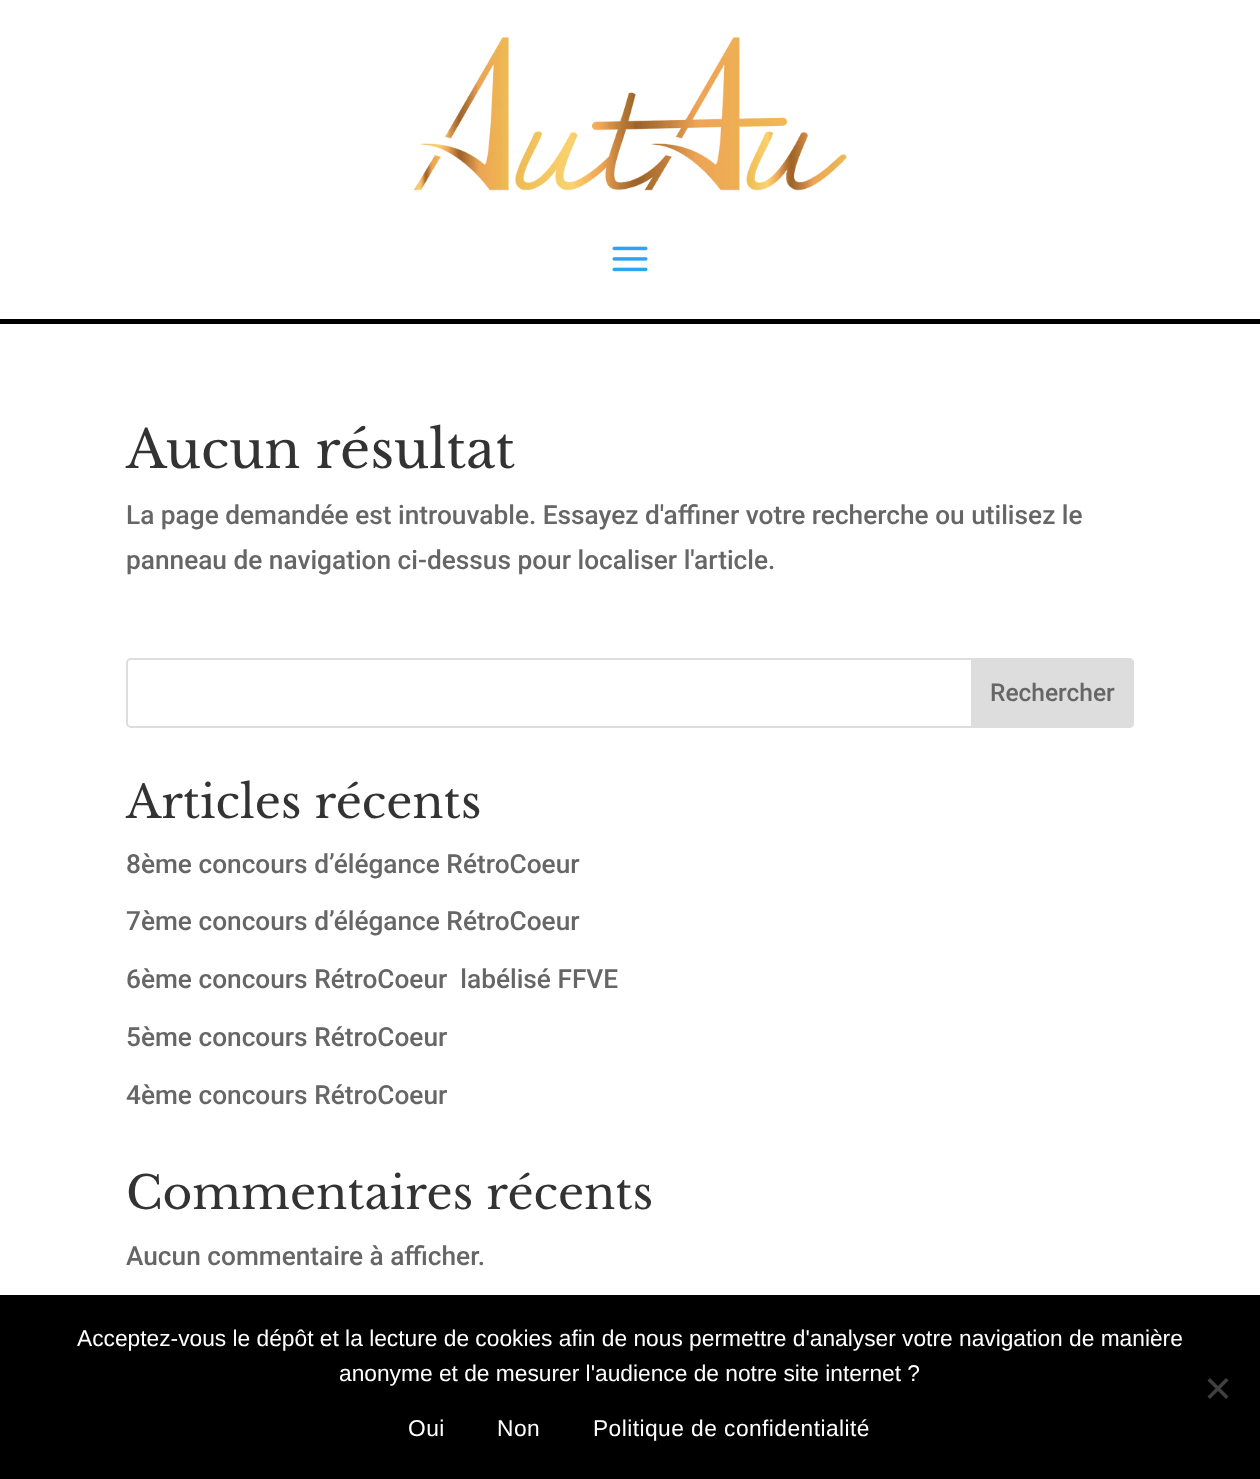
(async () => {
    const canvas = document.querySelector("canvas");
    canvas.width = 1260;
    canvas.height = 1479;
    const context = canvas.getContext("2d");
    context.miterLimit = 4;
    context.fontKerning = "normal";
    function write(s, x, y, font, color) {
        context.font = font;
        context.fillStyle = color;
        context.fillText(s, x, y);
    }
    function block(x, y, w, h, color) {
        context.fillStyle = color;
        context.fillRect(x, y, w, h);
    }
    async function photo(src, x, y, w, h) {
        const img = new Image();
        img.src = src;
        await img.decode();
        context.drawImage(img, x, y, w, h);
    }

    block(0, 0, 1260, 1479, "rgb(255, 255, 255)");
    await photo("media/1.png", 413, 37, 434, 154);
    await photo("media/2.png", 612, 246, 36, 26);
    block(0, 319, 1260, 5, "rgb(0, 0, 0)");
    write("Aucun résultat", 126, 468, "52.5px Libre Baskerville", "rgb(51, 51, 51)");
    write("La page demandée est introuvable. Essayez d'affiner votre recherche ou utilisez le", 126, 524, "500 26.25px Roboto", "rgb(102, 102, 102)");
    write("panneau de navigation ci-dessus pour localiser l'article.", 126, 569, "500 26.25px Roboto", "rgb(102, 102, 102)");
    context.beginPath();
    context.roundRect(127, 659, 1006, 68, 4);
    context.strokeStyle = "rgb(221, 221, 221)";
    context.lineWidth = 2;
    context.stroke();
    context.fillStyle = "rgb(221, 221, 221)";
    context.beginPath();
    context.roundRect(972, 659, 161, 68, [0, 4, 4, 0]);
    context.fill();
    context.stroke();
    write("Rechercher", 990, 701, "500 24.5px Roboto", "rgb(102, 102, 102)");
    write("Articles récents", 126, 818, "45.5px Libre Baskerville", "rgb(51, 51, 51)");
    write("8ème concours d’élégance RétroCoeur", 126, 873, "500 26.25px Roboto", "rgb(102, 102, 102)");
    write("7ème concours d’élégance RétroCoeur", 126, 930, "500 26.25px Roboto", "rgb(102, 102, 102)");
    write("6ème concours RétroCoeur  labélisé FFVE", 126, 988, "500 26.25px Roboto", "rgb(102, 102, 102)");
    write("5ème concours RétroCoeur", 126, 1046, "500 26.25px Roboto", "rgb(102, 102, 102)");
    write("4ème concours RétroCoeur", 126, 1104, "500 26.25px Roboto", "rgb(102, 102, 102)");
    write("Commentaires récents", 126, 1209, "45.5px Libre Baskerville", "rgb(51, 51, 51)");
    write("Aucun commentaire à afficher.", 126, 1265, "500 26.25px Roboto", "rgb(102, 102, 102)");
    block(0, 1295, 1260, 184, "rgb(0, 0, 0)");
    write("Acceptez-vous le dépôt et la lecture de cookies afin de nous permettre d'analyser votre navigation de manière", 77, 1346, "22.75px Liberation Sans", "rgb(255, 255, 255)");
    write("anonyme et de mesurer l'audience de notre site internet ?", 339, 1381, "22.75px Liberation Sans", "rgb(255, 255, 255)");
    context.fillStyle = "rgb(64, 64, 64)";
    context.beginPath();
    context.moveTo(1226, 1378);
    context.lineTo(1228.5, 1380.5);
    context.lineTo(1210, 1399);
    context.lineTo(1207.5, 1396.5);
    context.closePath();
    context.fill();
    context.beginPath();
    context.moveTo(1207.5, 1380.5);
    context.lineTo(1210, 1378);
    context.lineTo(1228.5, 1396.5);
    context.lineTo(1226, 1399);
    context.closePath();
    context.fill();
    context.letterSpacing = "0.45px";
    write("Oui", 408, 1436, "22.75px Liberation Sans", "rgb(255, 255, 255)");
    write("Non", 497, 1436, "22.75px Liberation Sans", "rgb(255, 255, 255)");
    write("Politique de confidentialité", 593, 1436, "22.75px Liberation Sans", "rgb(255, 255, 255)");
})();
